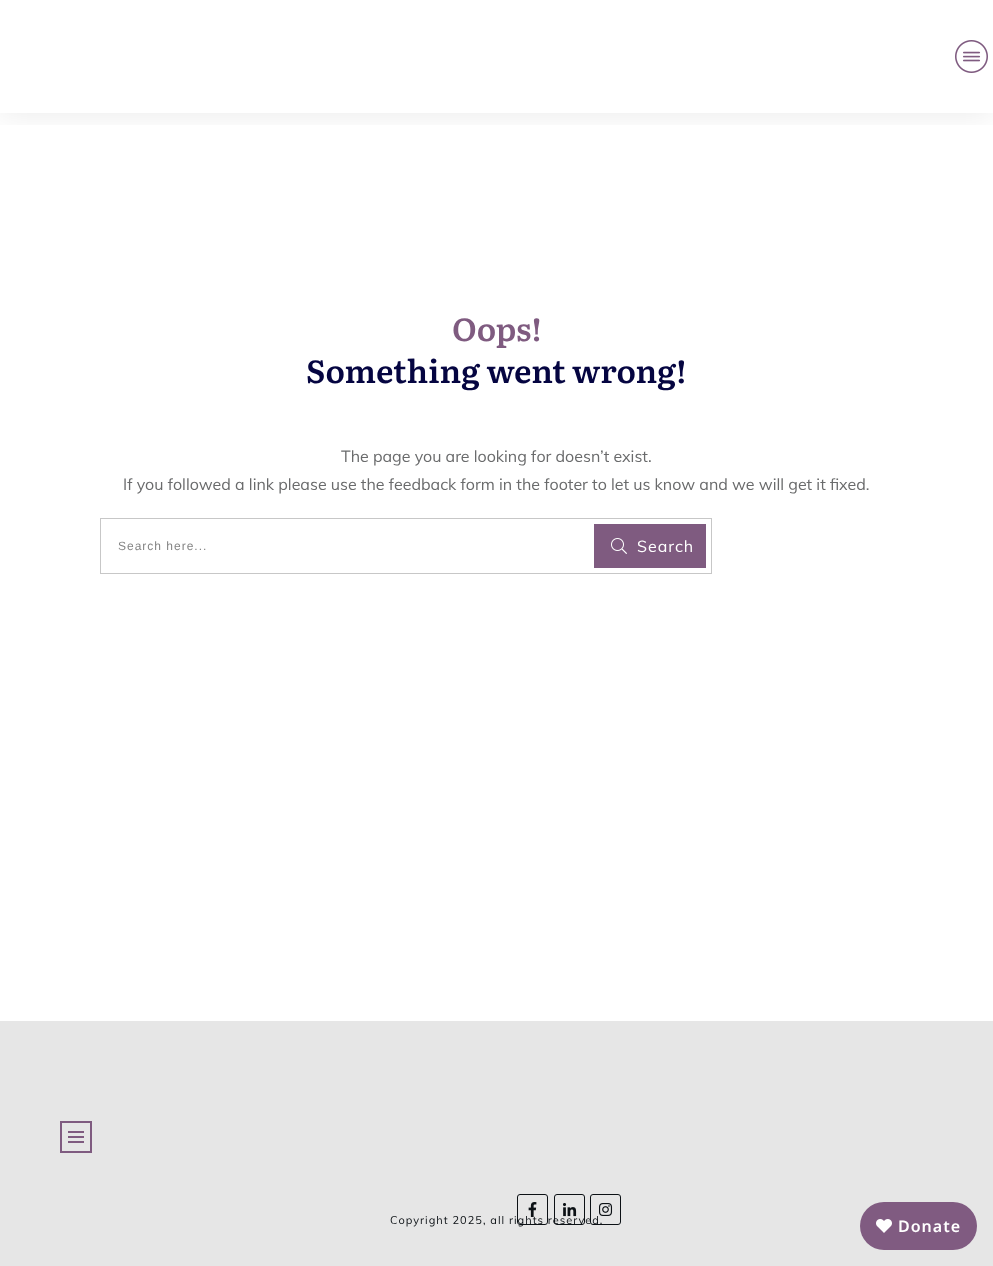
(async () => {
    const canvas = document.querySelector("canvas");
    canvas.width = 993;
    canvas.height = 1266;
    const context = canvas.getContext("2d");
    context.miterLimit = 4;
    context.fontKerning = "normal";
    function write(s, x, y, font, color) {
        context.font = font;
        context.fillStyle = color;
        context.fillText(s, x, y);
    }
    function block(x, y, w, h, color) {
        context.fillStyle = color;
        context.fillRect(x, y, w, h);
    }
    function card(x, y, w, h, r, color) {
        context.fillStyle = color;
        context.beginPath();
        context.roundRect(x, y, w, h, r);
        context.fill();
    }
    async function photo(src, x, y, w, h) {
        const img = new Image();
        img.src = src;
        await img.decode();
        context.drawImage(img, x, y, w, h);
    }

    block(0, 0, 993, 1266, "rgb(255, 255, 255)");
    context.save();
    context.beginPath();
    context.rect(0, 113, 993, 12);
    context.clip();
    context.fillStyle = "rgba(0, 0, 0, 0.08)";
    context.filter = "blur(15px)";
    context.beginPath();
    context.rect(0, 2, 993, 113);
    context.fill();
    context.filter = "none";
    context.restore();
    await photo("media/1.png", 955, 40, 33, 33);
    write("Oops!", 452, 341, "600 32px Literata", "rgb(127, 91, 128)");
    write("Something went wrong!", 306, 383, "600 32px Literata", "rgb(5, 5, 65)");
    write("The page you are looking for doesn’t exist.", 341, 462, "16px Muli", "rgb(106, 107, 108)");
    write("If you followed a link please use the feedback form in the footer to let us know and we will get it fixed.", 123, 490, "16px Muli", "rgb(106, 107, 108)");
    context.strokeStyle = "rgb(199, 199, 199)";
    context.strokeRect(100.5, 518.5, 611, 55);
    context.letterSpacing = "1px";
    write("Search here...", 118, 550, "12px Liberation Sans", "rgb(133, 133, 133)");
    block(594, 524, 112, 44, "rgb(127, 91, 128)");
    await photo("media/2.png", 611, 538, 16, 16);
    write("Search", 637, 552, "16px Muli", "rgb(255, 255, 255)");
    block(0, 1021, 993, 245, "rgb(230, 230, 230)");
    context.beginPath();
    context.roundRect(517.5, 1194.5, 30, 30, 2.5);
    context.strokeStyle = "rgb(12, 17, 21)";
    context.stroke();
    write("Copyright 2025, all rights reserved.", 390, 1224, "11px Muli", "rgb(12, 17, 21)");
    await photo("media/3.png", 528, 1202, 9, 15);
    context.beginPath();
    context.roundRect(554.5, 1194.5, 30, 30, 2.5);
    context.stroke();
    await photo("media/4.png", 563, 1203, 14, 14);
    context.beginPath();
    context.roundRect(590.5, 1194.5, 30, 30, 2.5);
    context.stroke();
    await photo("media/5.png", 599, 1203, 14, 13);
    await photo("media/6.png", 60, 1121, 32, 32);
    card(860, 1202, 117, 48, 24, "rgb(128, 91, 129)");
    await photo("media/7.png", 876, 1219, 16, 14);
    write("Donate", 898, 1232, "600 16px Noto Sans", "rgb(255, 255, 255)");
})();
